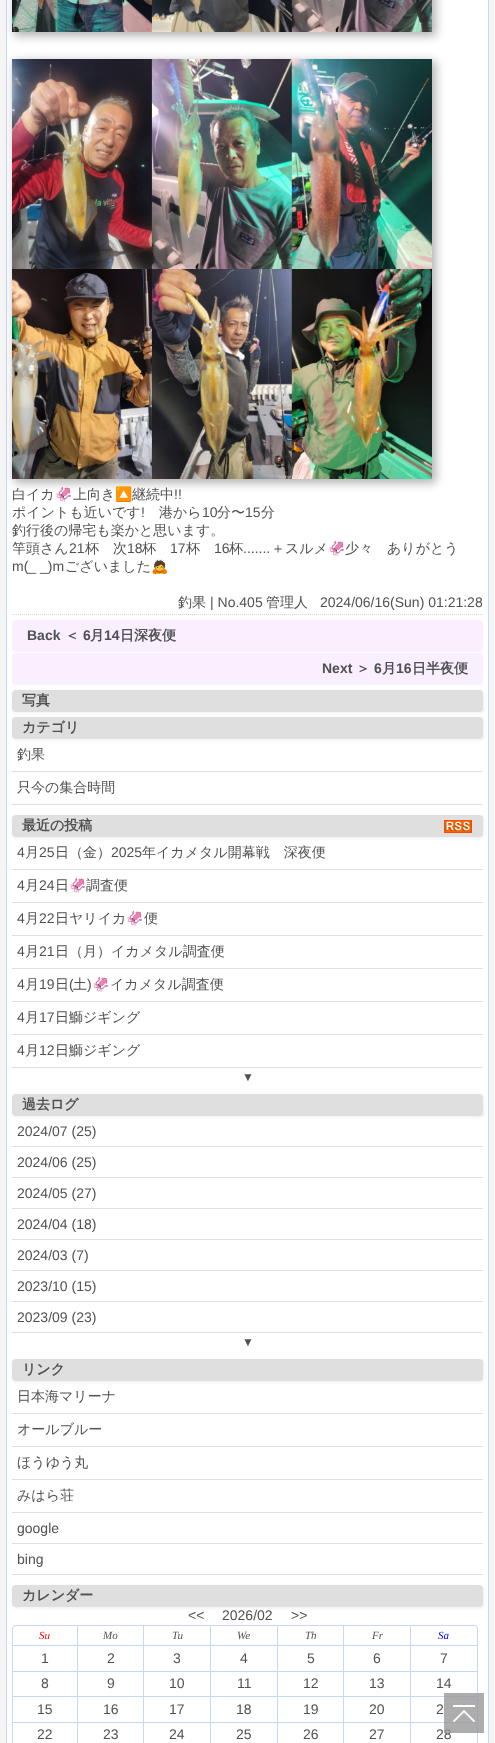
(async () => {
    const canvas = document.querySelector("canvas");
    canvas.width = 495;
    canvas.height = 1743;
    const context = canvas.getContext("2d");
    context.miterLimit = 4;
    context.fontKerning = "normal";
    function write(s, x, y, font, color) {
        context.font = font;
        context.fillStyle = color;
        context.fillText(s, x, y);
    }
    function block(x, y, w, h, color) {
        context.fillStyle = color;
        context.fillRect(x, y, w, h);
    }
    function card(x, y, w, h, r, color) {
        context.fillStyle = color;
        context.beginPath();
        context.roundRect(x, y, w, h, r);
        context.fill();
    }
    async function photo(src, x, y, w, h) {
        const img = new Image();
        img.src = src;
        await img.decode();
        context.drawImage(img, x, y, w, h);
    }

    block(0, 0, 495, 1743, "rgb(245, 245, 245)");
    context.fillStyle = "rgb(255, 255, 255)";
    context.beginPath();
    context.rect(6.5, -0.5, 482, 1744);
    context.fill();
    context.strokeStyle = "rgb(198, 215, 247)";
    context.stroke();
    context.beginPath();
    context.moveTo(12, 614.5);
    context.lineTo(483, 614.5);
    context.setLineDash([1, 1]);
    context.stroke();
    context.fillStyle = "rgba(0, 0, 0, 0.3)";
    context.filter = "blur(5px)";
    context.beginPath();
    context.rect(14, -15, 422, 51);
    context.fill();
    context.filter = "none";
    await photo("media/1.png", 12, 0, 420, 32);
    context.filter = "blur(5px)";
    context.beginPath();
    context.rect(14, 61, 422, 422);
    context.fill();
    context.filter = "none";
    await photo("media/2.png", 12, 59, 420, 420);
    write("白イカ", 12, 499, "500 14px WenQuanYi Zen Hei", "rgb(80, 81, 82)");
    write("🦑", 55, 499, "14px Noto Color Emoji", "rgb(80, 81, 82)");
    write("上向き", 73, 499, "500 14px WenQuanYi Zen Hei", "rgb(80, 81, 82)");
    write("🔼", 115, 499, "14px Noto Color Emoji", "rgb(80, 81, 82)");
    write("継続中", 132, 499, "500 14px WenQuanYi Zen Hei", "rgb(80, 81, 82)");
    write("!!", 174, 499, "14px Liberation Sans", "rgb(80, 81, 82)");
    write("ポイントも近いです", 12, 517, "500 14px WenQuanYi Zen Hei", "rgb(80, 81, 82)");
    write("!", 141, 517, "14px Liberation Sans", "rgb(80, 81, 82)");
    write("港から", 159, 517, "500 14px WenQuanYi Zen Hei", "rgb(80, 81, 82)");
    write("10", 202, 517, "14px Liberation Sans", "rgb(80, 81, 82)");
    write("分〜", 217, 517, "500 14px WenQuanYi Zen Hei", "rgb(80, 81, 82)");
    write("15", 245, 517, "14px Liberation Sans", "rgb(80, 81, 82)");
    write("分", 261, 517, "500 14px WenQuanYi Zen Hei", "rgb(80, 81, 82)");
    write("釣行後の帰宅も楽かと思います。", 12, 535, "500 14px WenQuanYi Zen Hei", "rgb(80, 81, 82)");
    write("竿頭さん", 12, 553, "500 14px WenQuanYi Zen Hei", "rgb(80, 81, 82)");
    write("21", 69, 553, "14px Liberation Sans", "rgb(80, 81, 82)");
    write("杯　次", 85, 553, "500 14px WenQuanYi Zen Hei", "rgb(80, 81, 82)");
    write("18", 127, 553, "14px Liberation Sans", "rgb(80, 81, 82)");
    write("杯", 142, 553, "500 14px WenQuanYi Zen Hei", "rgb(80, 81, 82)");
    write("17", 170, 553, "14px Liberation Sans", "rgb(80, 81, 82)");
    write("杯", 186, 553, "500 14px WenQuanYi Zen Hei", "rgb(80, 81, 82)");
    write("16", 214, 553, "14px Liberation Sans", "rgb(80, 81, 82)");
    write("杯", 229, 553, "500 14px WenQuanYi Zen Hei", "rgb(80, 81, 82)");
    write(".......", 243, 553, "14px Liberation Sans", "rgb(80, 81, 82)");
    write("＋スルメ", 271, 553, "500 14px WenQuanYi Zen Hei", "rgb(80, 81, 82)");
    write("🦑", 328, 553, "14px Noto Color Emoji", "rgb(80, 81, 82)");
    write("少々　ありがとう", 345, 553, "500 14px WenQuanYi Zen Hei", "rgb(80, 81, 82)");
    write("m(_ _)m", 12, 571, "14px Liberation Sans", "rgb(80, 81, 82)");
    write("ございました", 65, 571, "500 14px WenQuanYi Zen Hei", "rgb(80, 81, 82)");
    write("🙇", 151, 571, "14px Noto Color Emoji", "rgb(80, 81, 82)");
    write("釣果", 178, 607, "500 14px WenQuanYi Zen Hei", "rgb(80, 81, 82)");
    write("| No.405", 210, 607, "14px Liberation Sans", "rgb(80, 81, 82)");
    write("管理人", 266, 607, "500 14px WenQuanYi Zen Hei", "rgb(80, 81, 82)");
    write("2024/06/16(Sun) 01:21:28", 320, 607, "14px Liberation Sans", "rgb(80, 81, 82)");
    card(12, 620, 471, 32, 4, "rgb(249, 239, 255)");
    write("Back", 27, 640, "bold 14px Liberation Sans", "rgb(80, 81, 82)");
    write("＜", 65, 640, "bold 14px WenQuanYi Zen Hei", "rgb(80, 81, 82)");
    write("6", 83, 640, "bold 14px Liberation Sans", "rgb(80, 81, 82)");
    write("月", 90, 640, "bold 14px WenQuanYi Zen Hei", "rgb(80, 81, 82)");
    write("14", 104, 640, "bold 14px Liberation Sans", "rgb(80, 81, 82)");
    write("日深夜便", 120, 640, "bold 14px WenQuanYi Zen Hei", "rgb(80, 81, 82)");
    card(12, 653, 471, 32, 4, "rgb(249, 239, 255)");
    write("Next", 322, 673, "bold 14px Liberation Sans", "rgb(80, 81, 82)");
    write("＞", 356, 673, "bold 14px WenQuanYi Zen Hei", "rgb(80, 81, 82)");
    write("6", 374, 673, "bold 14px Liberation Sans", "rgb(80, 81, 82)");
    write("月", 382, 673, "bold 14px WenQuanYi Zen Hei", "rgb(80, 81, 82)");
    write("16", 396, 673, "bold 14px Liberation Sans", "rgb(80, 81, 82)");
    write("日半夜便", 412, 673, "bold 14px WenQuanYi Zen Hei", "rgb(80, 81, 82)");
    context.fillStyle = "rgba(150, 150, 150, 0.1)";
    context.filter = "blur(1px)";
    context.beginPath();
    context.roundRect(12, 690, 473, 24, 5);
    context.fill();
    context.filter = "none";
    card(12, 690, 471, 22, 4, "rgb(223, 223, 223)");
    write("写真", 22, 705, "bold 14px WenQuanYi Zen Hei", "rgb(80, 81, 82)");
    context.fillStyle = "rgba(150, 150, 150, 0.1)";
    context.filter = "blur(1px)";
    context.beginPath();
    context.roundRect(12, 717, 473, 24, 5);
    context.fill();
    context.filter = "none";
    card(12, 717, 471, 22, 4, "rgb(223, 223, 223)");
    write("カテゴリ", 22, 732, "bold 14px WenQuanYi Zen Hei", "rgb(80, 81, 82)");
    block(12, 771, 471, 1, "rgb(224, 224, 224)");
    write("釣果", 17, 759, "500 14px WenQuanYi Zen Hei", "rgb(80, 81, 82)");
    block(12, 804, 471, 1, "rgb(224, 224, 224)");
    write("只今の集合時間", 17, 792, "500 14px WenQuanYi Zen Hei", "rgb(80, 81, 82)");
    context.fillStyle = "rgba(150, 150, 150, 0.1)";
    context.filter = "blur(1px)";
    context.beginPath();
    context.roundRect(12, 815, 473, 24, 5);
    context.fill();
    context.filter = "none";
    card(12, 815, 471, 22, 4, "rgb(223, 223, 223)");
    write("最近の投稿", 22, 830, "bold 14px WenQuanYi Zen Hei", "rgb(80, 81, 82)");
    await photo("media/3.png", 444, 820, 28, 13);
    block(12, 869, 471, 1, "rgb(224, 224, 224)");
    write("4", 17, 857, "14px Liberation Sans", "rgb(80, 81, 82)");
    write("月", 25, 857, "500 14px WenQuanYi Zen Hei", "rgb(80, 81, 82)");
    write("25", 39, 857, "14px Liberation Sans", "rgb(80, 81, 82)");
    write("日（金）", 55, 857, "500 14px WenQuanYi Zen Hei", "rgb(80, 81, 82)");
    write("2025", 111, 857, "14px Liberation Sans", "rgb(80, 81, 82)");
    write("年イカメタル開幕戦　深夜便", 142, 857, "500 14px WenQuanYi Zen Hei", "rgb(80, 81, 82)");
    block(12, 902, 471, 1, "rgb(224, 224, 224)");
    write("4", 17, 890, "14px Liberation Sans", "rgb(80, 81, 82)");
    write("月", 25, 890, "500 14px WenQuanYi Zen Hei", "rgb(80, 81, 82)");
    write("24", 39, 890, "14px Liberation Sans", "rgb(80, 81, 82)");
    write("日", 55, 890, "500 14px WenQuanYi Zen Hei", "rgb(80, 81, 82)");
    write("🦑", 69, 890, "14px Noto Color Emoji", "rgb(80, 81, 82)");
    write("調査便", 86, 890, "500 14px WenQuanYi Zen Hei", "rgb(80, 81, 82)");
    block(12, 935, 471, 1, "rgb(224, 224, 224)");
    write("4", 17, 923, "14px Liberation Sans", "rgb(80, 81, 82)");
    write("月", 25, 923, "500 14px WenQuanYi Zen Hei", "rgb(80, 81, 82)");
    write("22", 39, 923, "14px Liberation Sans", "rgb(80, 81, 82)");
    write("日ヤリイカ", 55, 923, "500 14px WenQuanYi Zen Hei", "rgb(80, 81, 82)");
    write("🦑", 126, 923, "14px Noto Color Emoji", "rgb(80, 81, 82)");
    write("便", 144, 923, "500 14px WenQuanYi Zen Hei", "rgb(80, 81, 82)");
    block(12, 968, 471, 1, "rgb(224, 224, 224)");
    write("4", 17, 956, "14px Liberation Sans", "rgb(80, 81, 82)");
    write("月", 25, 956, "500 14px WenQuanYi Zen Hei", "rgb(80, 81, 82)");
    write("21", 39, 956, "14px Liberation Sans", "rgb(80, 81, 82)");
    write("日（月）イカメタル調査便", 55, 956, "500 14px WenQuanYi Zen Hei", "rgb(80, 81, 82)");
    block(12, 1001, 471, 1, "rgb(224, 224, 224)");
    write("4", 17, 989, "14px Liberation Sans", "rgb(80, 81, 82)");
    write("月", 25, 989, "500 14px WenQuanYi Zen Hei", "rgb(80, 81, 82)");
    write("19", 39, 989, "14px Liberation Sans", "rgb(80, 81, 82)");
    write("日", 55, 989, "500 14px WenQuanYi Zen Hei", "rgb(80, 81, 82)");
    write("(", 69, 989, "14px Liberation Sans", "rgb(80, 81, 82)");
    write("土", 73, 989, "500 14px WenQuanYi Zen Hei", "rgb(80, 81, 82)");
    write(")", 87, 989, "14px Liberation Sans", "rgb(80, 81, 82)");
    write("🦑", 92, 989, "14px Noto Color Emoji", "rgb(80, 81, 82)");
    write("イカメタル調査便", 110, 989, "500 14px WenQuanYi Zen Hei", "rgb(80, 81, 82)");
    block(12, 1034, 471, 1, "rgb(224, 224, 224)");
    write("4", 17, 1022, "14px Liberation Sans", "rgb(80, 81, 82)");
    write("月", 25, 1022, "500 14px WenQuanYi Zen Hei", "rgb(80, 81, 82)");
    write("17", 39, 1022, "14px Liberation Sans", "rgb(80, 81, 82)");
    write("日鰤ジギング", 55, 1022, "500 14px WenQuanYi Zen Hei", "rgb(80, 81, 82)");
    block(12, 1067, 471, 1, "rgb(224, 224, 224)");
    write("4", 17, 1055, "14px Liberation Sans", "rgb(80, 81, 82)");
    write("月", 25, 1055, "500 14px WenQuanYi Zen Hei", "rgb(80, 81, 82)");
    write("12", 39, 1055, "14px Liberation Sans", "rgb(80, 81, 82)");
    write("日鰤ジギング", 55, 1055, "500 14px WenQuanYi Zen Hei", "rgb(80, 81, 82)");
    write("▼", 242, 1081, "12px Liberation Sans", "rgb(80, 81, 82)");
    context.fillStyle = "rgba(150, 150, 150, 0.1)";
    context.filter = "blur(1px)";
    context.beginPath();
    context.roundRect(12, 1094, 473, 24, 5);
    context.fill();
    context.filter = "none";
    card(12, 1094, 471, 22, 4, "rgb(223, 223, 223)");
    write("過去ログ", 22, 1109, "bold 14px WenQuanYi Zen Hei", "rgb(80, 81, 82)");
    block(12, 1146, 471, 1, "rgb(224, 224, 224)");
    write("2024/07 (25)", 17, 1136, "14px Liberation Sans", "rgb(80, 81, 82)");
    block(12, 1177, 471, 1, "rgb(224, 224, 224)");
    write("2024/06 (25)", 17, 1167, "14px Liberation Sans", "rgb(80, 81, 82)");
    block(12, 1208, 471, 1, "rgb(224, 224, 224)");
    write("2024/05 (27)", 17, 1198, "14px Liberation Sans", "rgb(80, 81, 82)");
    block(12, 1239, 471, 1, "rgb(224, 224, 224)");
    write("2024/04 (18)", 17, 1229, "14px Liberation Sans", "rgb(80, 81, 82)");
    block(12, 1270, 471, 1, "rgb(224, 224, 224)");
    write("2024/03 (7)", 17, 1260, "14px Liberation Sans", "rgb(80, 81, 82)");
    block(12, 1301, 471, 1, "rgb(224, 224, 224)");
    write("2023/10 (15)", 17, 1291, "14px Liberation Sans", "rgb(80, 81, 82)");
    block(12, 1332, 471, 1, "rgb(224, 224, 224)");
    write("2023/09 (23)", 17, 1322, "14px Liberation Sans", "rgb(80, 81, 82)");
    write("▼", 242, 1346, "12px Liberation Sans", "rgb(80, 81, 82)");
    context.fillStyle = "rgba(150, 150, 150, 0.1)";
    context.filter = "blur(1px)";
    context.beginPath();
    context.roundRect(12, 1359, 473, 24, 5);
    context.fill();
    context.filter = "none";
    card(12, 1359, 471, 22, 4, "rgb(223, 223, 223)");
    write("リンク", 22, 1374, "bold 14px WenQuanYi Zen Hei", "rgb(80, 81, 82)");
    block(12, 1413, 471, 1, "rgb(224, 224, 224)");
    write("日本海マリーナ", 17, 1401, "500 14px WenQuanYi Zen Hei", "rgb(80, 81, 82)");
    block(12, 1446, 471, 1, "rgb(224, 224, 224)");
    write("オールブルー", 17, 1434, "500 14px WenQuanYi Zen Hei", "rgb(80, 81, 82)");
    block(12, 1479, 471, 1, "rgb(224, 224, 224)");
    write("ほうゆう丸", 17, 1467, "500 14px WenQuanYi Zen Hei", "rgb(80, 81, 82)");
    block(12, 1512, 471, 1, "rgb(224, 224, 224)");
    write("みはら荘", 17, 1500, "500 14px WenQuanYi Zen Hei", "rgb(80, 81, 82)");
    block(12, 1543, 471, 1, "rgb(224, 224, 224)");
    write("google", 17, 1533, "14px Liberation Sans", "rgb(80, 81, 82)");
    block(12, 1574, 471, 1, "rgb(224, 224, 224)");
    write("bing", 17, 1564, "14px Liberation Sans", "rgb(80, 81, 82)");
    context.fillStyle = "rgba(150, 150, 150, 0.1)";
    context.filter = "blur(1px)";
    context.beginPath();
    context.roundRect(12, 1585, 473, 24, 5);
    context.fill();
    context.filter = "none";
    card(12, 1585, 471, 22, 4, "rgb(223, 223, 223)");
    write("カレンダー", 22, 1600, "bold 14px WenQuanYi Zen Hei", "rgb(80, 81, 82)");
    write("<<", 188, 1620, "14px Liberation Sans", "rgb(80, 81, 82)");
    write("2026/02", 222, 1620, "14px Liberation Sans", "rgb(80, 81, 82)");
    write(">>", 291, 1620, "14px Liberation Sans", "rgb(80, 81, 82)");
    context.beginPath();
    context.roundRect(12.5, 1625.5, 465, 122, 3.5);
    context.setLineDash([]);
    context.stroke();
    block(13, 1645, 464, 1, "rgb(198, 215, 247)");
    write("Su", 39, 1639, "italic 11px Liberation Serif", "rgb(255, 0, 0)");
    block(77, 1626, 1, 20, "rgb(198, 215, 247)");
    write("Mo", 103, 1639, "italic 11px Liberation Serif", "rgb(80, 81, 82)");
    block(143, 1626, 1, 20, "rgb(198, 215, 247)");
    write("Tu", 172, 1639, "italic 11px Liberation Serif", "rgb(80, 81, 82)");
    block(210, 1626, 1, 20, "rgb(198, 215, 247)");
    write("We", 237, 1639, "italic 11px Liberation Serif", "rgb(80, 81, 82)");
    block(277, 1626, 1, 20, "rgb(198, 215, 247)");
    write("Th", 305, 1639, "italic 11px Liberation Serif", "rgb(80, 81, 82)");
    block(343, 1626, 1, 20, "rgb(198, 215, 247)");
    write("Fr", 372, 1639, "italic 11px Liberation Serif", "rgb(80, 81, 82)");
    block(410, 1626, 1, 20, "rgb(198, 215, 247)");
    write("Sa", 438, 1639, "italic 11px Liberation Serif", "rgb(0, 0, 255)");
    block(13, 1671, 464, 1, "rgb(198, 215, 247)");
    write("1", 41, 1663, "14px Liberation Sans", "rgb(80, 81, 82)");
    block(77, 1646, 1, 26, "rgb(198, 215, 247)");
    write("2", 107, 1663, "14px Liberation Sans", "rgb(80, 81, 82)");
    block(143, 1646, 1, 26, "rgb(198, 215, 247)");
    write("3", 173, 1663, "14px Liberation Sans", "rgb(80, 81, 82)");
    block(210, 1646, 1, 26, "rgb(198, 215, 247)");
    write("4", 240, 1663, "14px Liberation Sans", "rgb(80, 81, 82)");
    block(277, 1646, 1, 26, "rgb(198, 215, 247)");
    write("5", 307, 1663, "14px Liberation Sans", "rgb(80, 81, 82)");
    block(343, 1646, 1, 26, "rgb(198, 215, 247)");
    write("6", 373, 1663, "14px Liberation Sans", "rgb(80, 81, 82)");
    block(410, 1646, 1, 26, "rgb(198, 215, 247)");
    write("7", 440, 1663, "14px Liberation Sans", "rgb(80, 81, 82)");
    block(13, 1696, 464, 1, "rgb(198, 215, 247)");
    write("8", 41, 1688, "14px Liberation Sans", "rgb(80, 81, 82)");
    block(77, 1672, 1, 25, "rgb(198, 215, 247)");
    write("9", 107, 1688, "14px Liberation Sans", "rgb(80, 81, 82)");
    block(143, 1672, 1, 25, "rgb(198, 215, 247)");
    write("10", 169, 1688, "14px Liberation Sans", "rgb(80, 81, 82)");
    block(210, 1672, 1, 25, "rgb(198, 215, 247)");
    write("11", 237, 1688, "14px Liberation Sans", "rgb(80, 81, 82)");
    block(277, 1672, 1, 25, "rgb(198, 215, 247)");
    write("12", 303, 1688, "14px Liberation Sans", "rgb(80, 81, 82)");
    block(343, 1672, 1, 25, "rgb(198, 215, 247)");
    write("13", 369, 1688, "14px Liberation Sans", "rgb(80, 81, 82)");
    block(410, 1672, 1, 25, "rgb(198, 215, 247)");
    write("14", 436, 1688, "14px Liberation Sans", "rgb(80, 81, 82)");
    block(13, 1722, 464, 1, "rgb(198, 215, 247)");
    write("15", 37, 1714, "14px Liberation Sans", "rgb(80, 81, 82)");
    block(77, 1697, 1, 46, "rgb(198, 215, 247)");
    write("16", 103, 1714, "14px Liberation Sans", "rgb(80, 81, 82)");
    block(143, 1697, 1, 46, "rgb(198, 215, 247)");
    write("17", 169, 1714, "14px Liberation Sans", "rgb(80, 81, 82)");
    block(210, 1697, 1, 46, "rgb(198, 215, 247)");
    write("18", 236, 1714, "14px Liberation Sans", "rgb(80, 81, 82)");
    block(277, 1697, 1, 46, "rgb(198, 215, 247)");
    write("19", 303, 1714, "14px Liberation Sans", "rgb(80, 81, 82)");
    block(343, 1697, 1, 46, "rgb(198, 215, 247)");
    write("20", 369, 1714, "14px Liberation Sans", "rgb(80, 81, 82)");
    block(410, 1697, 1, 46, "rgb(198, 215, 247)");
    write("2", 436, 1714, "14px Liberation Sans", "rgb(80, 81, 82)");
    write("22", 37, 1739, "14px Liberation Sans", "rgb(80, 81, 82)");
    write("23", 103, 1739, "14px Liberation Sans", "rgb(80, 81, 82)");
    write("24", 169, 1739, "14px Liberation Sans", "rgb(80, 81, 82)");
    write("25", 236, 1739, "14px Liberation Sans", "rgb(80, 81, 82)");
    write("26", 303, 1739, "14px Liberation Sans", "rgb(80, 81, 82)");
    write("27", 369, 1739, "14px Liberation Sans", "rgb(80, 81, 82)");
    write("28", 436, 1739, "14px Liberation Sans", "rgb(80, 81, 82)");
    await photo("media/4.png", 444, 1693, 40, 40);
})();
